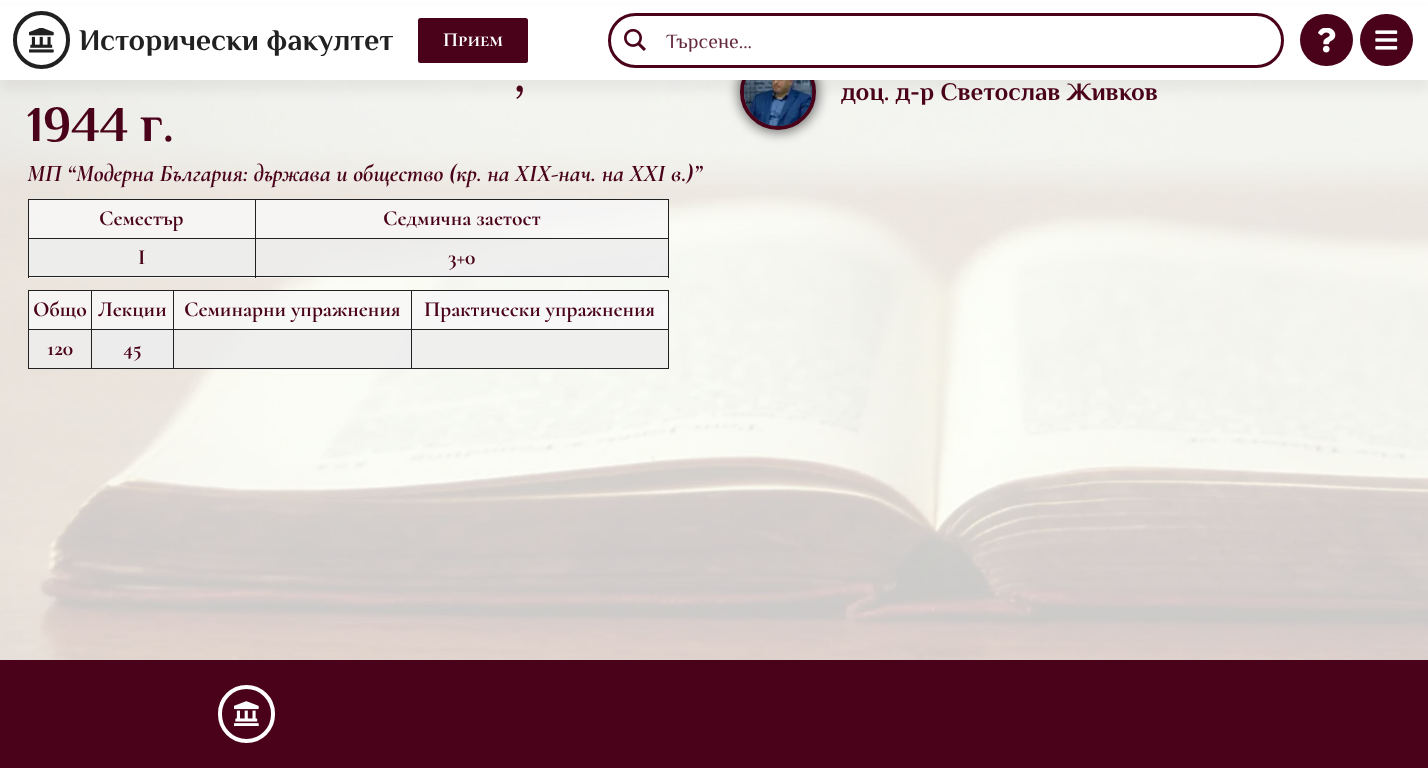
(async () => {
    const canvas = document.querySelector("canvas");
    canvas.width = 1428;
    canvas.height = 768;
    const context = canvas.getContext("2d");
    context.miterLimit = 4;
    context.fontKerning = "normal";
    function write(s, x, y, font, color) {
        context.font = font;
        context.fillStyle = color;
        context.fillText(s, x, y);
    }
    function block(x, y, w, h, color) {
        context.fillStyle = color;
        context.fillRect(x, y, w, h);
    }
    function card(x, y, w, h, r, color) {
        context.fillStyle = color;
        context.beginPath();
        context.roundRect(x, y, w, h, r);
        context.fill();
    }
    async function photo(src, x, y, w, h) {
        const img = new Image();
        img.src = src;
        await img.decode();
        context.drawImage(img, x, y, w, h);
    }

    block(0, 0, 1428, 768, "rgb(255, 255, 255)");
    await photo("media/5.png", 0, 80, 1428, 580);
    context.fillStyle = "rgba(0, 0, 0, 0.5)";
    context.filter = "blur(6px)";
    context.beginPath();
    context.roundRect(738, 51, 81, 82, 40.5);
    context.fill();
    context.filter = "none";
    context.beginPath();
    context.arc(778, 92, 36, 0, Math.PI * 2);
    context.strokeStyle = "rgb(73, 2, 26)";
    context.lineWidth = 4;
    context.stroke();
    await photo("media/6.png", 743, 80, 70, 46);
    context.fillStyle = "rgba(0, 0, 0, 0.05)";
    context.filter = "blur(6px)";
    context.beginPath();
    context.rect(0, 11, 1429, 80);
    context.fill();
    context.filter = "none";
    block(0, 6, 1428, 74, "rgb(255, 255, 255)");
    context.beginPath();
    context.roundRect(15, 13, 53, 54, 26.5);
    context.strokeStyle = "rgb(33, 33, 33)";
    context.stroke();
    await photo("media/1.png", 29, 28, 25, 25);
    write("Исторически факултет", 79, 50, "bold 30px Philosopher", "rgb(33, 33, 33)");
    card(418, 18, 110, 45, 2.5, "rgb(73, 2, 26)");
    write("Прием", 443, 46, "bold 20px Cormorant SC", "rgb(255, 255, 255)");
    context.beginPath();
    context.roundRect(609.5, 14.5, 673, 52, 26);
    context.strokeStyle = "rgb(73, 2, 26)";
    context.lineWidth = 3;
    context.stroke();
    context.save();
    context.beginPath();
    context.rect(618, 23, 35, 35);
    context.clip();
    context.fillStyle = "rgba(255, 255, 255, 0.64)";
    context.beginPath();
    context.moveTo(616, 24);
    context.lineTo(616, 56);
    context.bezierCurveTo(612, 52, 610, 46, 610, 40);
    context.bezierCurveTo(610, 26, 621, 15, 635, 15);
    context.lineTo(776, 15);
    context.lineTo(776, 65);
    context.lineTo(635, 65);
    context.bezierCurveTo(629, 65, 623, 63, 619, 59);
    context.lineTo(651, 59);
    context.lineTo(651, 24);
    context.closePath();
    context.fill();
    context.restore();
    await photo("media/2.png", 624, 29, 22, 22);
    write("Търсене...", 666, 48, "20px Philosopher", "rgb(100, 40, 60)");
    card(1300, 14, 53, 52, 26, "rgb(73, 2, 26)");
    await photo("media/3.png", 1318, 28, 18, 25);
    card(1360, 14, 53, 52, 26, "rgb(73, 2, 26)");
    await photo("media/4.png", 1375, 30, 23, 20);
    write(",", 514, 91, "bold 50px Philosopher", "rgb(73, 2, 26)");
    write("1944 г.", 27, 141, "bold 50px Philosopher", "rgb(73, 2, 26)");
    write("МП “Модерна България: държава и общество (кр. на ХІХ-нач. на ХХI в.)”", 27, 181, "italic bold 24px Cormorant", "rgb(73, 2, 26)");
    block(29, 200, 639, 78, "rgba(247, 247, 247, 0.87)");
    block(255, 199, 414, 1, "rgb(33, 33, 33)");
    block(255, 238, 414, 1, "rgb(33, 33, 33)");
    block(668, 238, 1, 40, "rgb(33, 33, 33)");
    block(255, 276, 414, 1, "rgb(33, 33, 33)");
    block(255, 238, 1, 40, "rgb(33, 33, 33)");
    block(28, 238, 228, 1, "rgb(33, 33, 33)");
    block(255, 199, 1, 40, "rgb(33, 33, 33)");
    block(28, 199, 228, 1, "rgb(33, 33, 33)");
    block(28, 276, 228, 1, "rgb(33, 33, 33)");
    block(28, 238, 1, 40, "rgb(33, 33, 33)");
    block(28, 199, 1, 40, "rgb(33, 33, 33)");
    write("Семестър", 99, 225, "bold 21.6px Cormorant", "rgb(73, 2, 26)");
    block(668, 199, 1, 40, "rgb(33, 33, 33)");
    write("Седмична заетост", 383, 225, "bold 21.6px Cormorant", "rgb(73, 2, 26)");
    block(29, 239, 226, 37, "rgb(237, 237, 236)");
    write("I", 138, 264, "bold 21.6px Cormorant", "rgb(73, 2, 26)");
    block(256, 239, 412, 37, "rgba(128, 128, 128, 0.07)");
    write("3+0", 448, 264, "bold 21.6px Cormorant", "rgb(73, 2, 26)");
    block(29, 291, 639, 77, "rgba(247, 247, 247, 0.87)");
    block(411, 290, 258, 1, "rgb(33, 33, 33)");
    block(411, 329, 258, 1, "rgb(33, 33, 33)");
    block(174, 330, 239, 38, "rgba(128, 128, 128, 0.07)");
    block(668, 329, 1, 40, "rgb(33, 33, 33)");
    block(411, 368, 258, 1, "rgb(33, 33, 33)");
    block(411, 329, 1, 40, "rgb(33, 33, 33)");
    block(173, 329, 240, 1, "rgb(33, 33, 33)");
    block(411, 290, 1, 40, "rgb(33, 33, 33)");
    block(173, 290, 240, 1, "rgb(33, 33, 33)");
    block(173, 368, 240, 1, "rgb(33, 33, 33)");
    block(173, 329, 1, 40, "rgb(33, 33, 33)");
    block(91, 329, 83, 1, "rgb(33, 33, 33)");
    block(173, 290, 1, 40, "rgb(33, 33, 33)");
    block(91, 290, 83, 1, "rgb(33, 33, 33)");
    block(29, 330, 64, 38, "rgb(237, 236, 235)");
    block(91, 368, 83, 1, "rgb(33, 33, 33)");
    block(91, 329, 1, 40, "rgb(33, 33, 33)");
    block(28, 329, 65, 1, "rgb(33, 33, 33)");
    block(91, 290, 1, 40, "rgb(33, 33, 33)");
    block(28, 290, 65, 1, "rgb(33, 33, 33)");
    block(28, 368, 65, 1, "rgb(33, 33, 33)");
    block(28, 329, 1, 40, "rgb(33, 33, 33)");
    block(28, 290, 1, 40, "rgb(33, 33, 33)");
    write("Общо", 33, 316, "bold 21.6px Cormorant", "rgb(73, 2, 26)");
    write("Лекции", 98, 316, "bold 21.6px Cormorant", "rgb(73, 2, 26)");
    write("Семинарни упражнения", 184, 316, "bold 21.6px Cormorant", "rgb(73, 2, 26)");
    block(668, 290, 1, 40, "rgb(33, 33, 33)");
    write("Практически упражнения", 424, 316, "bold 21.6px Cormorant", "rgb(73, 2, 26)");
    write("120", 47, 355, "bold 21.6px Cormorant", "rgb(73, 2, 26)");
    block(93, 330, 80, 38, "rgb(237, 236, 236)");
    write("45", 123, 355, "bold 21.6px Cormorant", "rgb(73, 2, 26)");
    block(413, 330, 255, 38, "rgb(239, 239, 238)");
    write("доц. д-р Светослав Живков", 841, 100, "bold 25px Philosopher", "rgb(73, 2, 26)");
    block(0, 660, 1428, 108, "rgb(73, 2, 26)");
    context.beginPath();
    context.roundRect(220, 687, 53, 54, 26.5);
    context.strokeStyle = "rgb(255, 255, 255)";
    context.lineWidth = 4;
    context.stroke();
    await photo("media/7.png", 234, 701, 25, 25);
})();
